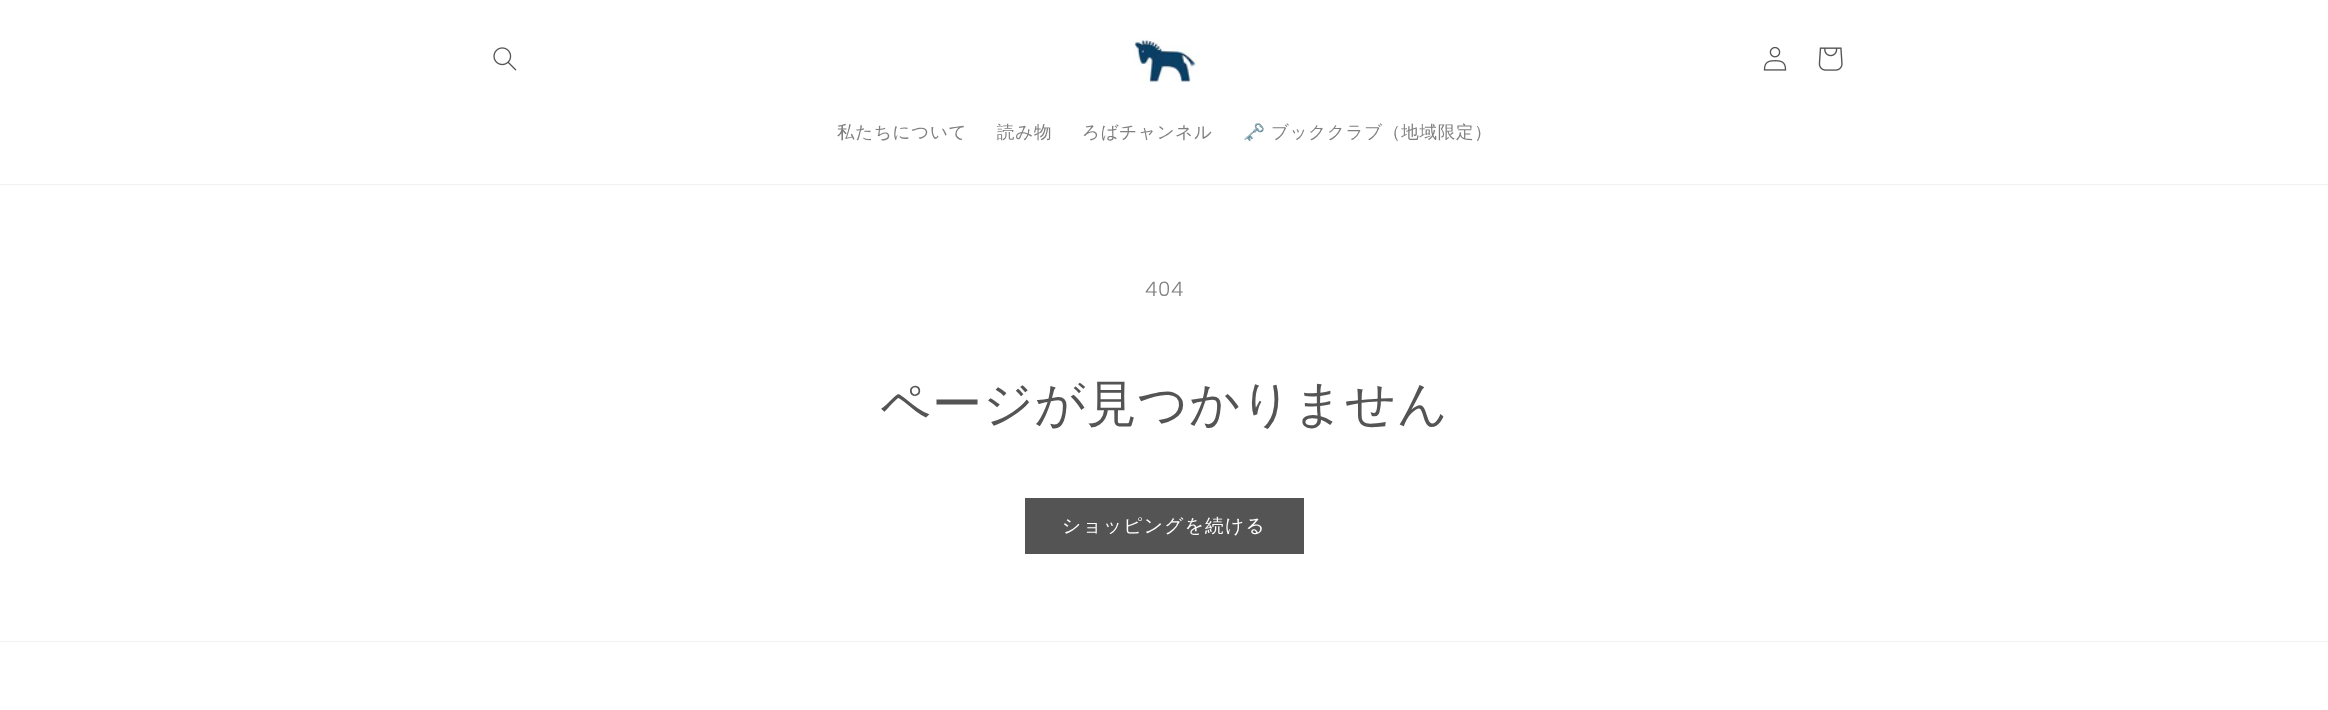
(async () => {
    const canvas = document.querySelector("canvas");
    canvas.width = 2328;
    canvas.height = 710;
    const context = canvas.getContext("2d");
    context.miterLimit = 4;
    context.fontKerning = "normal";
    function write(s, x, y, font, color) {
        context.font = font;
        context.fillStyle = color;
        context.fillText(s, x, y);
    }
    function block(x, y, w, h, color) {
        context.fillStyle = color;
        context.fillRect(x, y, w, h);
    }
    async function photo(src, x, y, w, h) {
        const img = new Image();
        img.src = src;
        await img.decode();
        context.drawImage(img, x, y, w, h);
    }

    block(0, 0, 2328, 710, "rgb(255, 255, 255)");
    block(0, 184, 2328, 1, "rgb(241, 241, 241)");
    await photo("media/1.png", 493, 47, 24, 24);
    await photo("media/2.png", 1133, 38, 68, 45);
    await photo("media/3.png", 1763, 46, 24, 25);
    await photo("media/4.png", 1818, 47, 25, 24);
    context.letterSpacing = "0.75px";
    write("私たちについて", 837, 138, "500 17.5px WenQuanYi Zen Hei", "rgb(127, 127, 127)");
    write("読み物", 997, 138, "500 17.5px WenQuanYi Zen Hei", "rgb(127, 127, 127)");
    write("ろばチャンネル", 1082, 138, "500 17.5px WenQuanYi Zen Hei", "rgb(127, 127, 127)");
    write("🗝️", 1243, 138, "17.5px Noto Color Emoji", "rgb(127, 127, 127)");
    write("ブッククラブ（地域限定）", 1271, 138, "500 17.5px WenQuanYi Zen Hei", "rgb(127, 127, 127)");
    write("404", 1145, 296, "300 20px Poppins", "rgb(127, 127, 127)");
    write("ページが見つかりません", 880, 421, "500 50px WenQuanYi Zen Hei", "rgb(84, 84, 84)");
    block(1025, 498, 279, 56, "rgb(84, 84, 84)");
    context.letterSpacing = "1.25px";
    write("ショッピングを続ける", 1062, 532, "500 18.75px WenQuanYi Zen Hei", "rgb(255, 255, 255)");
    block(0, 641, 2328, 1, "rgb(241, 241, 241)");
})();
